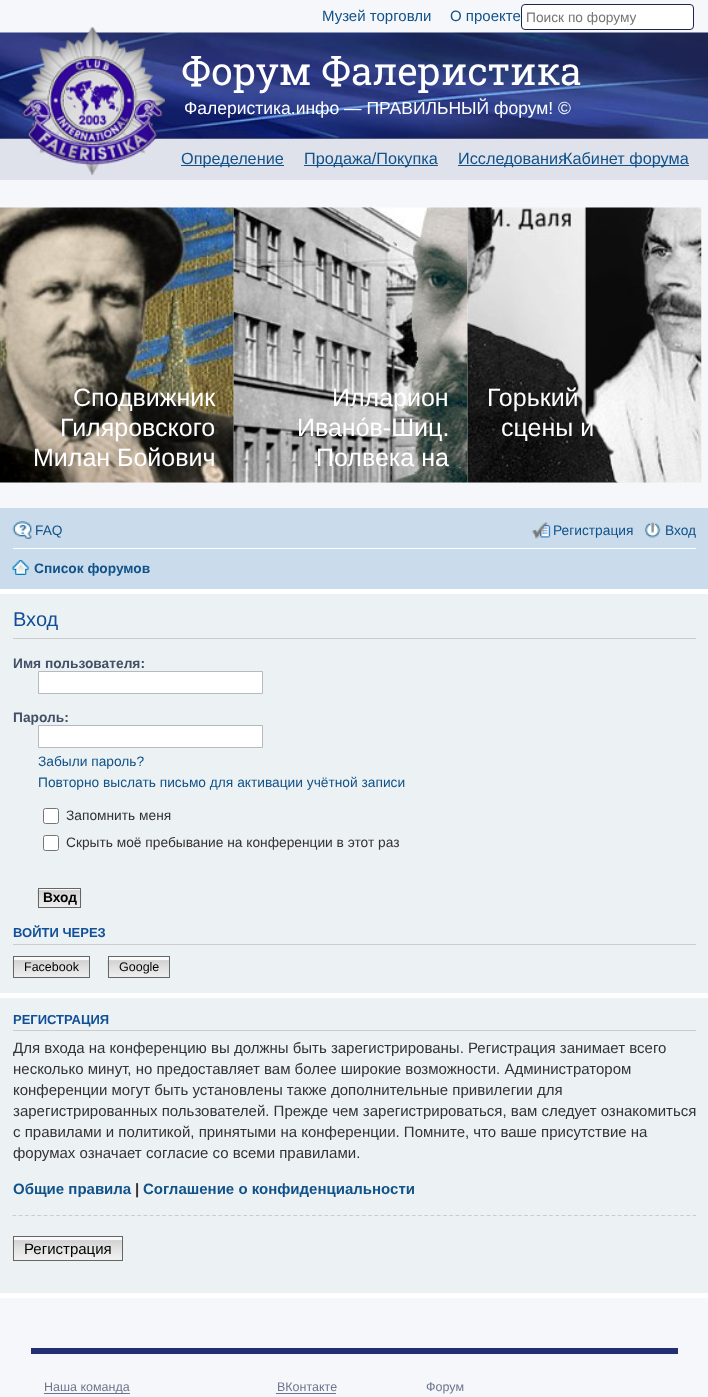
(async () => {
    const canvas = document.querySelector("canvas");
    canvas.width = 708;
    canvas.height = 1397;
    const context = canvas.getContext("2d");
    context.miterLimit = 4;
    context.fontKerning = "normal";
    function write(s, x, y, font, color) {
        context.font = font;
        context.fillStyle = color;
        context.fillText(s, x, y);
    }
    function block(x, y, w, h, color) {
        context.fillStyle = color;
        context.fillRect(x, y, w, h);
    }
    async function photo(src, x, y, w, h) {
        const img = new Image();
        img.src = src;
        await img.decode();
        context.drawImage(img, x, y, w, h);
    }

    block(0, 0, 708, 1397, "rgb(245, 247, 250)");
    await photo("media/1.png", 0, 32, 708, 107);
    write("Музей торговли", 322, 21, "15px Liberation Sans", "rgb(16, 82, 137)");
    write("О проекте", 450, 21, "15px Liberation Sans", "rgb(16, 82, 137)");
    context.fillStyle = "rgb(255, 255, 255)";
    context.beginPath();
    context.roundRect(521.5, 4.5, 172, 25, 3.5);
    context.fill();
    context.strokeStyle = "rgb(28, 37, 79)";
    context.stroke();
    write("Поиск по форуму", 526, 22, "13.75px Liberation Sans", "rgb(117, 117, 117)");
    block(0, 139, 708, 41, "rgb(223, 226, 235)");
    await photo("media/2.png", 18, 27, 147, 148);
    write("Форум Фалеристика", 181, 85, "38.75px Roboto Slab", "rgb(255, 255, 255)");
    write("Фалеристика.инфо — ПРАВИЛЬНЫЙ форум! ©", 184, 114, "17.5px Liberation Sans", "rgb(255, 255, 255)");
    block(181, 165, 103, 1, "rgb(16, 82, 137)");
    write("Определение", 181, 164, "16.25px Liberation Sans", "rgb(16, 82, 137)");
    block(304, 165, 134, 1, "rgb(16, 82, 137)");
    write("Продажа/Покупка", 304, 164, "16.25px Liberation Sans", "rgb(16, 82, 137)");
    block(458, 165, 108, 1, "rgb(16, 82, 137)");
    write("Исследования", 458, 164, "16.25px Liberation Sans", "rgb(16, 82, 137)");
    block(563, 165, 126, 1, "rgb(16, 82, 137)");
    write("Кабинет форума", 563, 164, "16.25px Liberation Sans", "rgb(16, 82, 137)");
    await photo("media/3.png", 0, 207, 234, 276);
    write("Сподвижник", 73, 406, "25px Liberation Sans", "rgb(255, 255, 255)");
    write("Гиляровского", 60, 436, "25px Liberation Sans", "rgb(255, 255, 255)");
    write("Милан Бойович", 33, 466, "25px Liberation Sans", "rgb(255, 255, 255)");
    await photo("media/4.png", 233, 207, 235, 276);
    write("Илларион", 332, 406, "25px Liberation Sans", "rgb(255, 255, 255)");
    write("Ивано́в-Шиц.", 297, 436, "25px Liberation Sans", "rgb(255, 255, 255)");
    write("Полвека на", 316, 466, "25px Liberation Sans", "rgb(255, 255, 255)");
    await photo("media/5.png", 467, 207, 235, 276);
    write("Горький", 487, 406, "25px Liberation Sans", "rgb(255, 255, 255)");
    write("сцены и", 501, 436, "25px Liberation Sans", "rgb(255, 255, 255)");
    block(0, 589, 708, 709, "rgb(255, 255, 255)");
    block(0, 508, 708, 81, "rgb(202, 220, 235)");
    await photo("media/6.png", 12, 521, 21, 18);
    write("FAQ", 35, 535, "13.75px Liberation Sans", "rgb(16, 82, 137)");
    await photo("media/7.png", 532, 522, 19, 17);
    write("Регистрация", 553, 535, "13.75px Liberation Sans", "rgb(16, 82, 137)");
    await photo("media/8.png", 644, 522, 17, 16);
    write("Вход", 665, 535, "13.75px Liberation Sans", "rgb(16, 82, 137)");
    block(13, 548, 683, 1, "rgb(255, 255, 255)");
    await photo("media/9.png", 12, 560, 17, 15);
    write("Список форумов", 34, 573, "bold 13.75px Liberation Sans", "rgb(16, 82, 137)");
    block(0, 594, 708, 399, "rgb(236, 241, 243)");
    block(13, 638, 683, 1, "rgb(204, 204, 204)");
    write("Вход", 13, 626, "20px Liberation Sans", "rgb(17, 80, 152)");
    write("Имя пользователя:", 13, 668, "bold 13.75px Liberation Sans", "rgb(66, 80, 103)");
    context.fillStyle = "rgb(255, 255, 255)";
    context.beginPath();
    context.rect(38.5, 671.5, 224, 22);
    context.fill();
    context.strokeStyle = "rgb(180, 186, 192)";
    context.stroke();
    write("Пароль:", 13, 722, "bold 13.75px Liberation Sans", "rgb(66, 80, 103)");
    context.fillStyle = "rgb(255, 255, 255)";
    context.beginPath();
    context.rect(38.5, 725.5, 224, 22);
    context.fill();
    context.stroke();
    write("Забыли пароль?", 38, 766, "13.75px Liberation Sans", "rgb(16, 82, 137)");
    write("Повторно выслать письмо для активации учётной записи", 38, 787, "13.75px Liberation Sans", "rgb(16, 82, 137)");
    context.fillStyle = "rgb(255, 255, 255)";
    context.beginPath();
    context.roundRect(43.5, 808.5, 15, 15, 2);
    context.fill();
    context.strokeStyle = "rgb(118, 118, 118)";
    context.stroke();
    write("Запомнить меня", 66, 820, "13.75px Liberation Sans", "rgb(51, 51, 51)");
    context.fillStyle = "rgb(255, 255, 255)";
    context.beginPath();
    context.roundRect(43.5, 835.5, 15, 15, 2);
    context.fill();
    context.stroke();
    write("Скрыть моё пребывание на конференции в этот раз", 66, 847, "13.75px Liberation Sans", "rgb(51, 51, 51)");
    await photo("media/10.png", 37, 889, 45, 19);
    context.strokeStyle = "rgb(102, 102, 102)";
    context.strokeRect(38.5, 888.5, 42, 19);
    write("Вход", 43, 902, "bold 13.75px Liberation Sans", "rgb(0, 0, 0)");
    block(13, 944, 683, 1, "rgb(204, 204, 204)");
    write("ВОЙТИ ЧЕРЕЗ", 13, 937, "bold 13px Liberation Sans", "rgb(17, 80, 152)");
    await photo("media/11.png", 12, 960, 77, 18);
    await photo("media/12.png", 107, 959, 62, 19);
    block(14, 957, 75, 3, "rgb(250, 250, 250)");
    context.strokeRect(13.5, 956.5, 76, 21);
    write("Facebook", 24, 971, "12.5px Liberation Sans", "rgb(0, 0, 0)");
    block(109, 957, 60, 2, "rgb(250, 250, 250)");
    context.strokeRect(108.5, 956.5, 61, 21);
    write("Google", 119, 971, "12.5px Liberation Sans", "rgb(0, 0, 0)");
    block(0, 998, 708, 295, "rgb(236, 241, 243)");
    block(13, 1030, 683, 1, "rgb(204, 204, 204)");
    write("РЕГИСТРАЦИЯ", 13, 1024, "bold 13px Liberation Sans", "rgb(17, 80, 152)");
    context.save();
    context.beginPath();
    context.rect(13, 1039, 683, 125);
    context.clip();
    write("Для входа на конференцию вы должны быть зарегистрированы. Регистрация занимает всего", 13, 1053, "15px Liberation Sans", "rgb(51, 51, 51)");
    context.restore();
    write("несколько минут, но предоставляет вам более широкие возможности. Администратором", 13, 1074, "15px Liberation Sans", "rgb(51, 51, 51)");
    write("конференции могут быть установлены также дополнительные привилегии для", 13, 1095, "15px Liberation Sans", "rgb(51, 51, 51)");
    write("зарегистрированных пользователей. Прежде чем зарегистрироваться, вам следует ознакомиться", 13, 1116, "15px Liberation Sans", "rgb(51, 51, 51)");
    write("с правилами и политикой, принятыми на конференции. Помните, что ваше присутствие на", 13, 1137, "15px Liberation Sans", "rgb(51, 51, 51)");
    write("форумах означает согласие со всеми правилами.", 13, 1158, "15px Liberation Sans", "rgb(51, 51, 51)");
    write("Общие правила", 13, 1194, "bold 15px Liberation Sans", "rgb(16, 82, 137)");
    write("|", 135, 1194, "bold 15px Liberation Sans", "rgb(51, 51, 51)");
    write("Соглашение о конфиденциальности", 143, 1194, "bold 15px Liberation Sans", "rgb(16, 82, 137)");
    context.beginPath();
    context.moveTo(12.5, 1215.5);
    context.lineTo(696, 1215.5);
    context.strokeStyle = "rgb(204, 204, 204)";
    context.lineWidth = 1.2;
    context.setLineDash([3.75, 2.49]);
    context.stroke();
    await photo("media/13.png", 12, 1240, 110, 21);
    block(14, 1237, 108, 3, "rgb(250, 250, 250)");
    context.strokeStyle = "rgb(102, 102, 102)";
    context.lineWidth = 1;
    context.setLineDash([]);
    context.strokeRect(13.5, 1236.5, 109, 24);
    write("Регистрация", 24, 1254, "15px Liberation Sans", "rgb(0, 0, 0)");
    block(31, 1348, 647, 6, "rgb(34, 48, 115)");
    block(44, 1393, 86, 1, "rgb(111, 117, 142)");
    write("Наша команда", 44, 1391, "12.5px Liberation Sans", "rgb(111, 117, 142)");
    write("ВКонтакте", 277, 1391, "12.5px Liberation Sans", "rgb(111, 117, 142)");
    block(276, 1393, 60, 1, "rgb(111, 117, 142)");
    write("Форум", 426, 1391, "12.5px Liberation Sans", "rgb(111, 117, 142)");
})();
